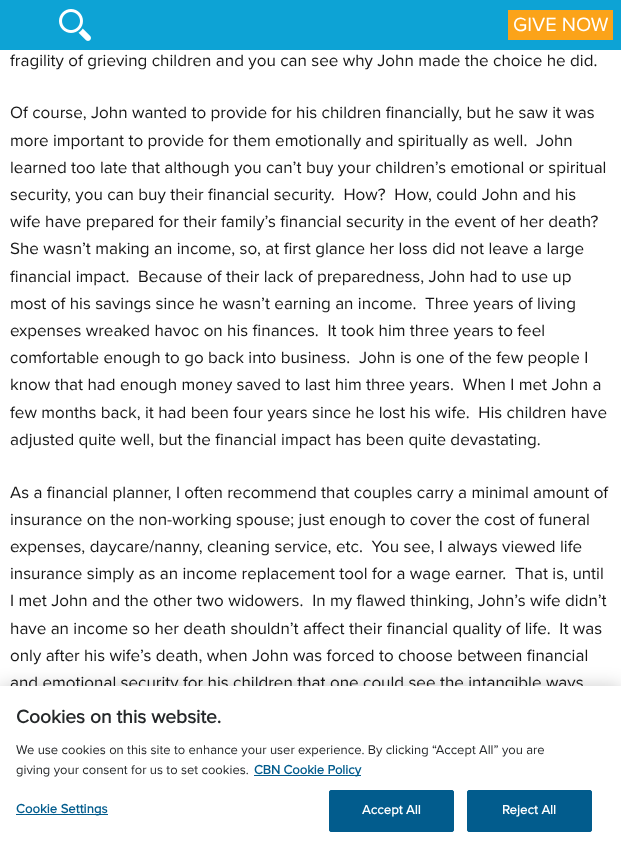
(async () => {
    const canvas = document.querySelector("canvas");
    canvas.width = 621;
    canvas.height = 851;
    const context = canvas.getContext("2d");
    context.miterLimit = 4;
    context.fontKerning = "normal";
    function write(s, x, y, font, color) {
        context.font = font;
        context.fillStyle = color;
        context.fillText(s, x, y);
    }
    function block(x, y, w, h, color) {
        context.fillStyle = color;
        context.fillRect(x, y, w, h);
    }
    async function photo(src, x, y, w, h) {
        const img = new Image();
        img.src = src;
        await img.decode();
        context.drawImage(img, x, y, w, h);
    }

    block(0, 0, 621, 851, "rgb(255, 255, 255)");
    block(0, 0, 621, 50, "rgb(13, 163, 213)");
    await photo("media/1.png", 59, 9, 32, 32);
    block(508, 10, 105, 30, "rgb(251, 163, 25)");
    write("GIVE NOW", 513, 31, "20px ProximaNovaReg", "rgb(255, 255, 255)");
    write("fragility of grieving children and you can see why John made the choice he did.", 10, 66, "17px ProximaNovaReg", "rgb(24, 24, 24)");
    write("Of course, John wanted to provide for his children financially, but he saw it was", 10, 118, "17px ProximaNovaReg", "rgb(24, 24, 24)");
    write("more important to provide for them emotionally and spiritually as well.  John", 10, 146, "17px ProximaNovaReg", "rgb(24, 24, 24)");
    write("learned too late that although you can’t buy your children’s emotional or spiritual", 10, 173, "17px ProximaNovaReg", "rgb(24, 24, 24)");
    write("security, you can buy their financial security.  How?  How, could John and his", 10, 200, "17px ProximaNovaReg", "rgb(24, 24, 24)");
    write("wife have prepared for their family’s financial security in the event of her death?", 10, 227, "17px ProximaNovaReg", "rgb(24, 24, 24)");
    write("She wasn’t making an income, so, at first glance her loss did not leave a large", 10, 254, "17px ProximaNovaReg", "rgb(24, 24, 24)");
    write("financial impact.  Because of their lack of preparedness, John had to use up", 10, 282, "17px ProximaNovaReg", "rgb(24, 24, 24)");
    write("most of his savings since he wasn’t earning an income.  Three years of living", 10, 309, "17px ProximaNovaReg", "rgb(24, 24, 24)");
    write("expenses wreaked havoc on his finances.  It took him three years to feel", 10, 336, "17px ProximaNovaReg", "rgb(24, 24, 24)");
    write("comfortable enough to go back into business.  John is one of the few people I", 10, 363, "17px ProximaNovaReg", "rgb(24, 24, 24)");
    write("know that had enough money saved to last him three years.  When I met John a", 10, 390, "17px ProximaNovaReg", "rgb(24, 24, 24)");
    write("few months back, it had been four years since he lost his wife.  His children have", 10, 418, "17px ProximaNovaReg", "rgb(24, 24, 24)");
    write("adjusted quite well, but the financial impact has been quite devastating.", 10, 445, "17px ProximaNovaReg", "rgb(24, 24, 24)");
    write("As a financial planner, I often recommend that couples carry a minimal amount of", 10, 498, "17px ProximaNovaReg", "rgb(24, 24, 24)");
    write("insurance on the non-working spouse; just enough to cover the cost of funeral", 10, 525, "17px ProximaNovaReg", "rgb(24, 24, 24)");
    write("expenses, daycare/nanny, cleaning service, etc.  You see, I always viewed life", 10, 552, "17px ProximaNovaReg", "rgb(24, 24, 24)");
    write("insurance simply as an income replacement tool for a wage earner.  That is, until", 10, 579, "17px ProximaNovaReg", "rgb(24, 24, 24)");
    write("I met John and the other two widowers.  In my flawed thinking, John’s wife didn’t", 10, 606, "17px ProximaNovaReg", "rgb(24, 24, 24)");
    write("have an income so her death shouldn’t affect their financial quality of life.  It was", 10, 634, "17px ProximaNovaReg", "rgb(24, 24, 24)");
    write("only after his wife’s death, when John was forced to choose between financial", 10, 661, "17px ProximaNovaReg", "rgb(24, 24, 24)");
    write("and emotional security for his children that one could see the intangible ways", 10, 688, "17px ProximaNovaReg", "rgb(24, 24, 24)");
    context.fillStyle = "rgba(0, 0, 0, 0.2)";
    context.filter = "blur(9px)";
    context.beginPath();
    context.rect(0, 686, 621, 165);
    context.fill();
    context.filter = "none";
    block(0, 686, 621, 165, "rgb(255, 255, 255)");
    write("Cookies on this website.", 16, 723, "bold 19.25px ProximaNovaReg", "rgb(37, 40, 42)");
    write("We use cookies on this site to enhance your user experience. By clicking “Accept All” you are", 16, 754, "13px ProximaNovaReg", "rgb(37, 40, 42)");
    write("giving your consent for us to set cookies.", 16, 774, "13px ProximaNovaReg", "rgb(37, 40, 42)");
    block(254, 775, 107, 1, "rgb(2, 92, 141)");
    write("CBN Cookie Policy", 254, 774, "bold 13px ProximaNovaReg", "rgb(2, 92, 141)");
    block(16, 814, 92, 1, "rgb(2, 92, 141)");
    context.letterSpacing = "0.1px";
    write("Cookie Settings", 16, 813, "bold 13px ProximaNovaReg", "rgb(2, 92, 141)");
    context.beginPath();
    context.roundRect(329.5, 790.5, 124, 41, 1.5);
    context.fill();
    context.strokeStyle = "rgb(2, 92, 141)";
    context.stroke();
    write("Accept All", 362, 814, "bold 13px ProximaNovaReg", "rgb(255, 255, 255)");
    context.fillStyle = "rgb(2, 92, 141)";
    context.beginPath();
    context.roundRect(467.5, 790.5, 124, 41, 1.5);
    context.fill();
    context.stroke();
    write("Reject All", 502, 814, "bold 13px ProximaNovaReg", "rgb(255, 255, 255)");
})();
